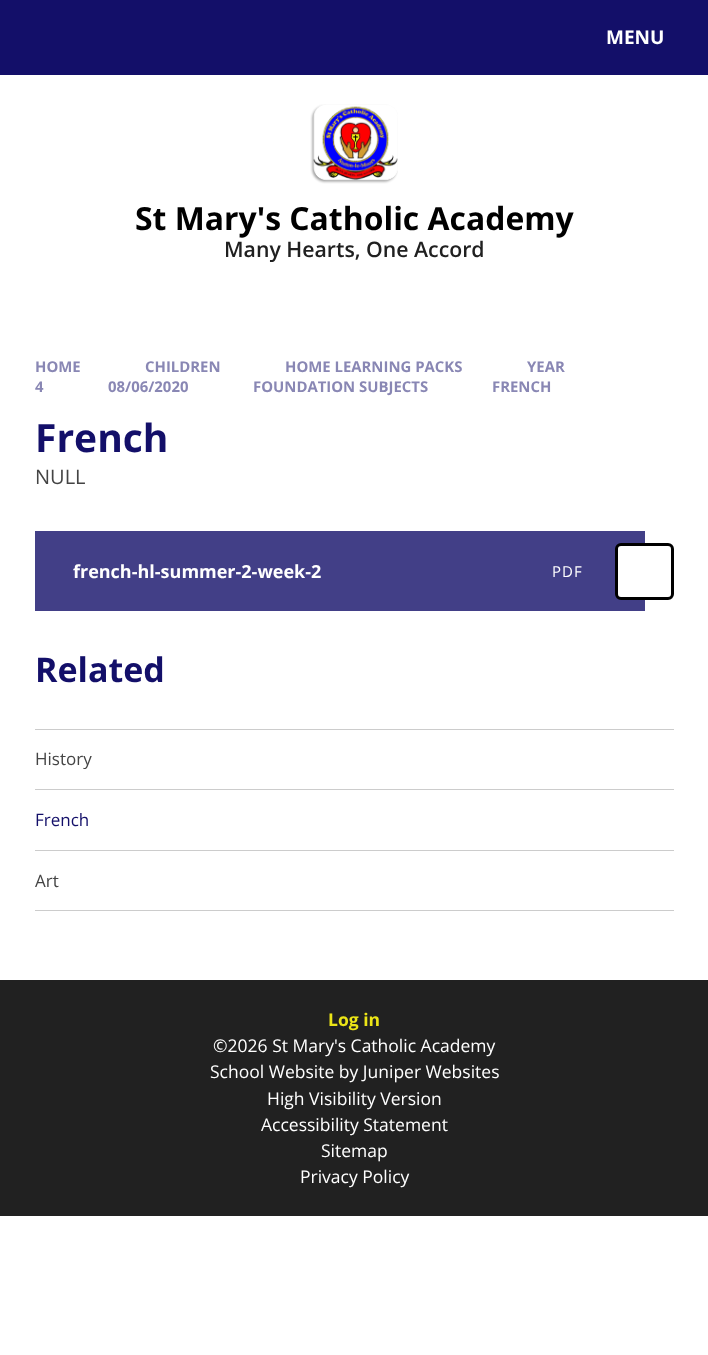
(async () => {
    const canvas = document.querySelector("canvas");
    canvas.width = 708;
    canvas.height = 1355;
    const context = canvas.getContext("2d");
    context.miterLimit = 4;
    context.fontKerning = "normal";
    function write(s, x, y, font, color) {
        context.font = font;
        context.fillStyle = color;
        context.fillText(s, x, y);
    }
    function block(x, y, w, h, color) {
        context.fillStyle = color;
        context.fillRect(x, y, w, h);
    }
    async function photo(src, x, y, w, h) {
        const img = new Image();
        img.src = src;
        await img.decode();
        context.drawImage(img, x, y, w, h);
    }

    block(0, 0, 708, 1355, "rgb(255, 255, 255)");
    block(0, 0, 708, 75, "rgb(19, 15, 105)");
    write("MENU", 606, 44, "bold 19px Open Sans", "rgb(255, 255, 255)");
    await photo("media/1.png", 310, 104, 88, 80);
    write("St Mary's Catholic Academy", 135, 230, "bold 31.9px Open Sans", "rgb(0, 0, 0)");
    write("Many Hearts, One Accord", 224, 257, "600 21.25px Open Sans", "rgb(32, 32, 32)");
    write("HOME", 35, 372, "bold 14.9px Open Sans", "rgb(137, 135, 180)");
    write("CHILDREN", 145, 372, "bold 14.9px Open Sans", "rgb(137, 135, 180)");
    write("HOME LEARNING PACKS", 285, 372, "bold 14.9px Open Sans", "rgb(137, 135, 180)");
    write("YEAR", 527, 372, "bold 14.9px Open Sans", "rgb(137, 135, 180)");
    write("4", 35, 392, "bold 14.9px Open Sans", "rgb(137, 135, 180)");
    write("08/06/2020", 108, 392, "bold 14.9px Open Sans", "rgb(137, 135, 180)");
    write("FOUNDATION SUBJECTS", 253, 392, "bold 14.9px Open Sans", "rgb(137, 135, 180)");
    write("FRENCH", 492, 392, "bold 14.9px Open Sans", "rgb(137, 135, 180)");
    write("French", 35, 452, "bold 39px Open Sans", "rgb(19, 15, 105)");
    write("NULL", 35, 484, "20px Open Sans", "rgb(68, 68, 68)");
    block(35, 531, 610, 80, "rgb(66, 63, 135)");
    write("french-hl-summer-2-week-2", 73, 578, "bold 18px Open Sans", "rgb(255, 255, 255)");
    context.letterSpacing = "1px";
    write("PDF", 552, 577, "15px Open Sans", "rgb(255, 255, 255)");
    context.beginPath();
    context.roundRect(616.5, 544.5, 56, 54, 4.5);
    context.fill();
    context.strokeStyle = "rgb(0, 0, 0)";
    context.lineWidth = 3;
    context.stroke();
    context.letterSpacing = "0px";
    write("Related", 35, 682, "bold 34px Open Sans", "rgb(19, 15, 105)");
    block(35, 729, 639, 1, "rgb(204, 204, 204)");
    write("History", 35, 765, "17px Open Sans", "rgb(68, 68, 68)");
    block(35, 789, 639, 1, "rgb(204, 204, 204)");
    write("French", 35, 826, "17px Open Sans", "rgb(19, 15, 105)");
    block(35, 850, 639, 1, "rgb(204, 204, 204)");
    block(35, 910, 639, 1, "rgb(204, 204, 204)");
    write("Art", 35, 887, "17px Open Sans", "rgb(68, 68, 68)");
    block(0, 980, 708, 236, "rgb(33, 33, 33)");
    write("Log in", 328, 1026, "bold 17.5px Open Sans", "rgb(236, 229, 23)");
    write("©2026 St Mary's Catholic Academy", 213, 1052, "17.5px Open Sans", "rgb(255, 255, 255)");
    write("School Website by Juniper Websites", 210, 1078, "17.5px Open Sans", "rgb(255, 255, 255)");
    write("High Visibility Version", 267, 1105, "17.5px Open Sans", "rgb(255, 255, 255)");
    write("Accessibility Statement", 261, 1131, "17.5px Open Sans", "rgb(255, 255, 255)");
    write("Sitemap", 321, 1157, "17.5px Open Sans", "rgb(255, 255, 255)");
    write("Privacy Policy", 300, 1183, "17.5px Open Sans", "rgb(255, 255, 255)");
})();
